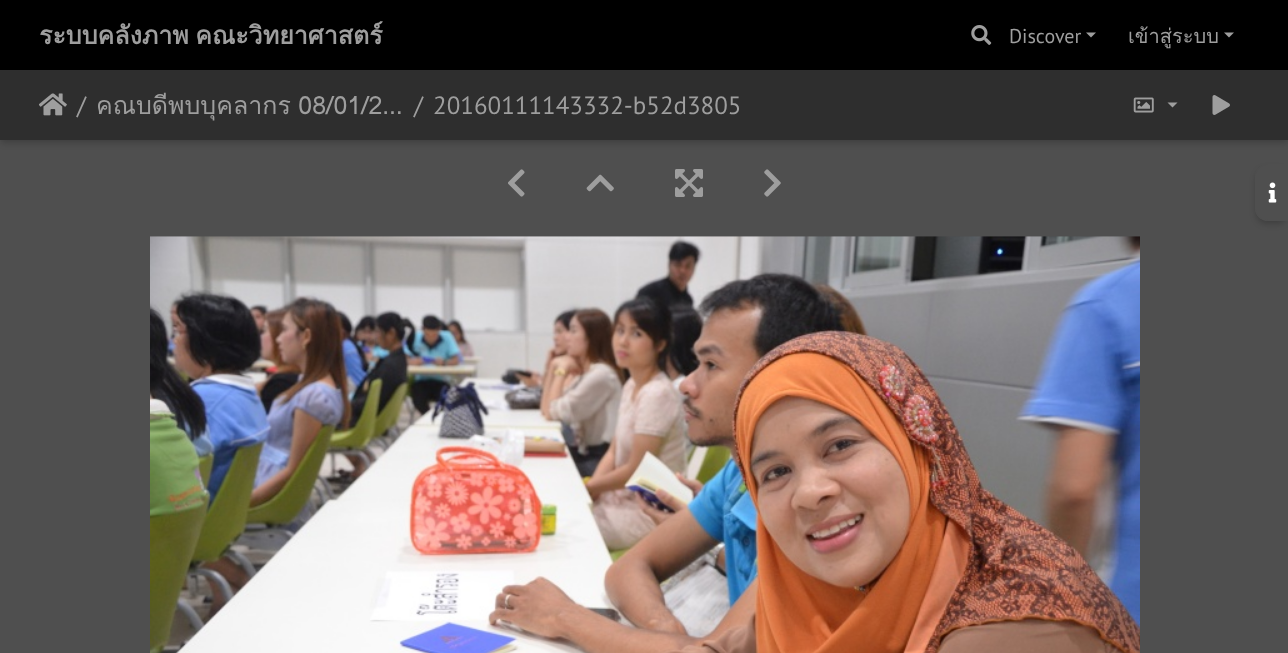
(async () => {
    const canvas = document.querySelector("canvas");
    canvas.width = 1288;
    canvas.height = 653;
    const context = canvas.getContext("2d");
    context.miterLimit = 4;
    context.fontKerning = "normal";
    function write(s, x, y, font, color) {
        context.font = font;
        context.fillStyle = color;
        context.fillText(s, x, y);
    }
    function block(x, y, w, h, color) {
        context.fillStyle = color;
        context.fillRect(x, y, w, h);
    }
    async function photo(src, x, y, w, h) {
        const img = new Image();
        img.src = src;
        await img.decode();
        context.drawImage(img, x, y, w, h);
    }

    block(0, 0, 1288, 653, "rgb(79, 79, 79)");
    context.fillStyle = "rgba(0, 0, 0, 0.2)";
    context.filter = "blur(3px)";
    context.beginPath();
    context.rect(1, 75, 1287, 68);
    context.fill();
    context.filter = "none";
    block(0, 0, 1288, 70, "rgb(0, 0, 0)");
    context.wordSpacing = "-2px";
    write("ระบบคลังภาพ คณะวิทยาศาสตร์", 39, 44, "bold 25px Loma", "rgb(158, 158, 158)");
    await photo("media/1.png", 971, 25, 21, 20);
    context.wordSpacing = "0px";
    write("Discover", 1009, 43, "20px PT Sans", "rgb(158, 158, 158)");
    context.beginPath();
    context.moveTo(1086, 32.5);
    context.lineTo(1096, 32.5);
    context.lineTo(1091, 37.5);
    context.closePath();
    context.fill();
    write("เข้าสู่ระบบ", 1128, 43, "20px Loma", "rgb(158, 158, 158)");
    context.beginPath();
    context.moveTo(1224, 32.5);
    context.lineTo(1234, 32.5);
    context.lineTo(1229, 37.5);
    context.closePath();
    context.fill();
    block(0, 70, 1288, 70, "rgb(46, 46, 46)");
    await photo("media/2.png", 39, 93, 28, 23);
    write("/", 77, 114, "25px PT Sans", "rgb(158, 158, 158)");
    context.wordSpacing = "-1px";
    write("คณบดีพบบุคลากร 08/01/2…", 96, 114, "25px Loma", "rgb(158, 158, 158)");
    context.wordSpacing = "0px";
    write("/", 414, 114, "25px PT Sans", "rgb(158, 158, 158)");
    write("20160111143332-b52d3805", 433, 114, "25px PT Sans", "rgb(158, 158, 158)");
    await photo("media/3.png", 1133, 97, 21, 16);
    context.beginPath();
    context.moveTo(1167.5, 102.5);
    context.lineTo(1177.5, 102.5);
    context.lineTo(1172.5, 107.5);
    context.closePath();
    context.fill();
    await photo("media/4.png", 1212, 95, 18, 20);
    await photo("media/5.png", 508, 169, 17, 28);
    await photo("media/6.png", 586, 174, 28, 18);
    await photo("media/7.png", 675, 169, 28, 28);
    await photo("media/8.png", 764, 169, 17, 28);
    context.fillStyle = "rgba(0, 0, 0, 0.2)";
    context.filter = "blur(3px)";
    context.beginPath();
    context.roundRect(1256, 169, 32, 55, 11);
    context.fill();
    context.filter = "none";
    context.fillStyle = "rgb(79, 79, 79)";
    context.beginPath();
    context.moveTo(1268, 164);
    context.lineTo(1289, 164);
    context.lineTo(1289, 221);
    context.lineTo(1268, 221);
    context.bezierCurveTo(1261, 221, 1255, 215, 1255, 208);
    context.lineTo(1255, 177);
    context.bezierCurveTo(1255, 170, 1261, 164, 1268, 164);
    context.closePath();
    context.fill();
    context.beginPath();
    context.moveTo(1268, 164);
    context.lineTo(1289, 164);
    context.lineTo(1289, 221);
    context.lineTo(1268, 221);
    context.bezierCurveTo(1261, 221, 1255, 216, 1255, 209);
    context.lineTo(1255, 176);
    context.bezierCurveTo(1255, 169, 1261, 164, 1268, 164);
    context.closePath();
    context.moveTo(1268, 165);
    context.lineTo(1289, 165);
    context.lineTo(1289, 220);
    context.lineTo(1268, 220);
    context.bezierCurveTo(1261, 220, 1256, 215, 1256, 209);
    context.lineTo(1256, 176);
    context.bezierCurveTo(1256, 170, 1261, 165, 1268, 165);
    context.closePath();
    context.fill("evenodd");
    await photo("media/9.png", 1268, 182, 9, 21);
    await photo("media/10.png", 150, 236, 990, 417);
})();
